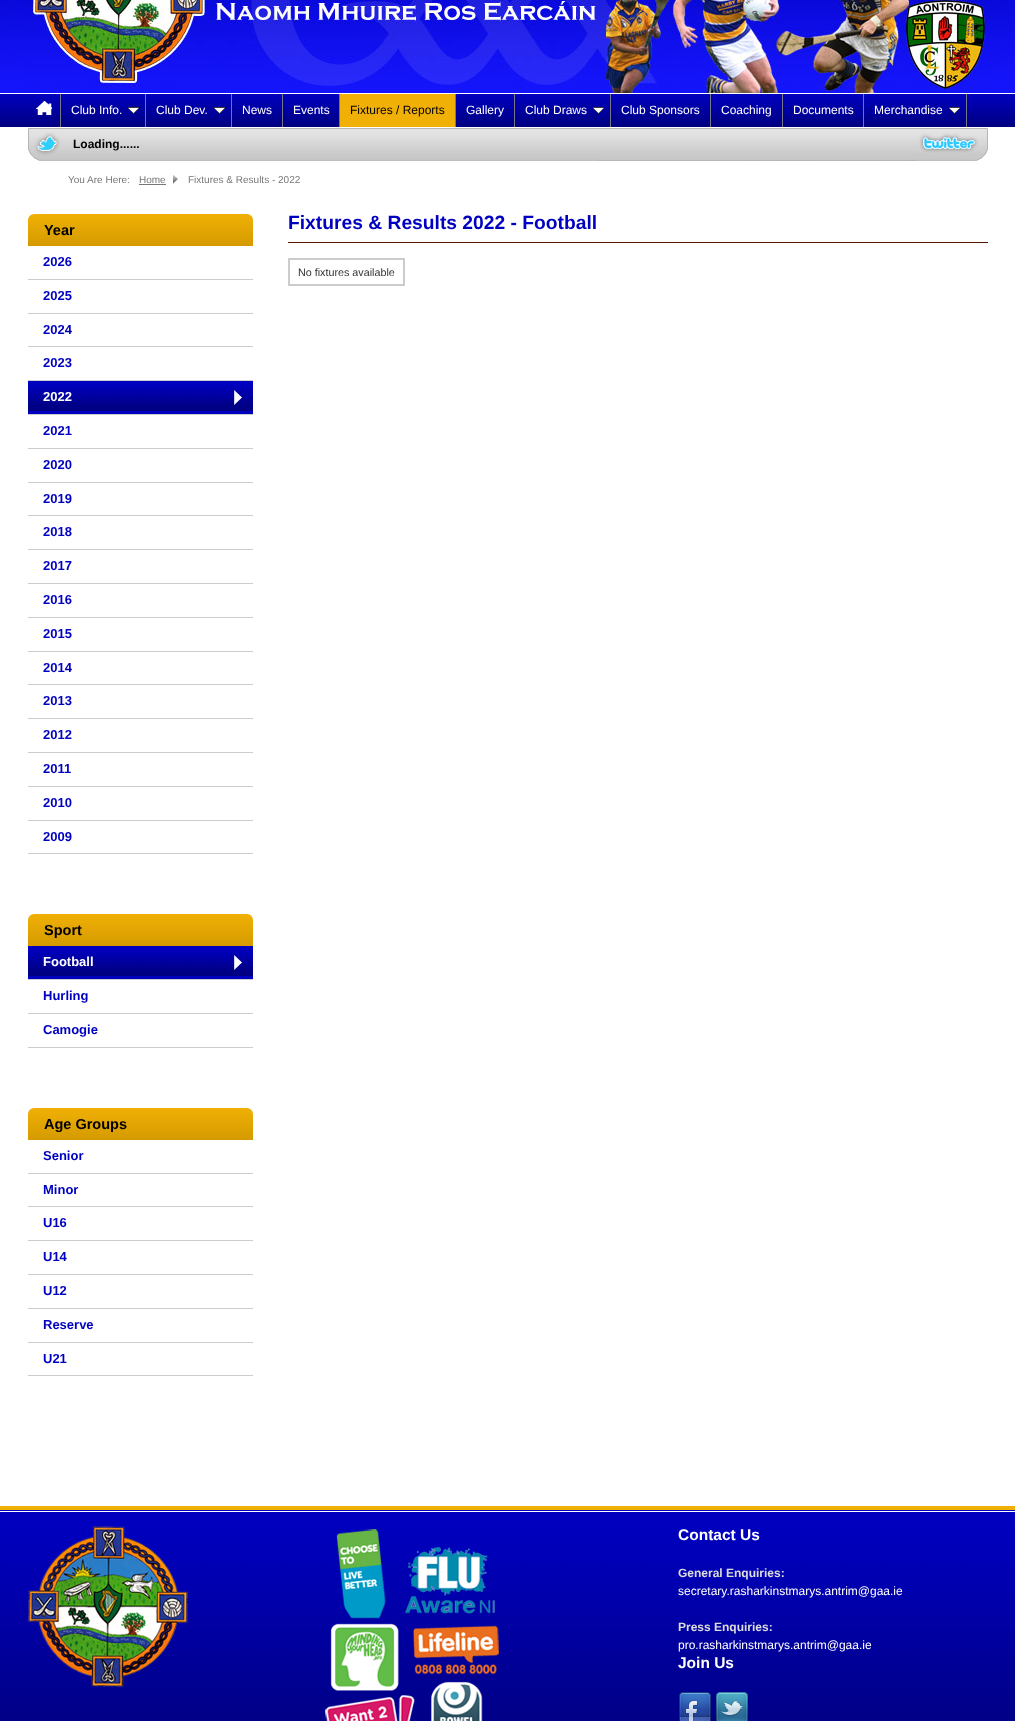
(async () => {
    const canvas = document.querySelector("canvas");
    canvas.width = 1015;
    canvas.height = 1721;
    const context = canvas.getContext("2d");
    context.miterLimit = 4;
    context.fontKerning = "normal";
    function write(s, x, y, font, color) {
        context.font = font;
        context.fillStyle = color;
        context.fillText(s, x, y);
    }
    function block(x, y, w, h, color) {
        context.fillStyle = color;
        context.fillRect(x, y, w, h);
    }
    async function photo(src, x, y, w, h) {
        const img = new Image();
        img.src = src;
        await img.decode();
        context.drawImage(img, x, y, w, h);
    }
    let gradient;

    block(0, 0, 1015, 1721, "rgb(255, 255, 255)");
    await photo("media/1.png", 0, 0, 1015, 93);
    await photo("media/2.png", 28, 0, 960, 93);
    gradient = context.createLinearGradient(508, 94, 508, 127);
    gradient.addColorStop(0, "rgb(0, 0, 192)");
    gradient.addColorStop(1, "rgb(0, 0, 128)");
    context.fillStyle = gradient;
    context.fillRect(0, 94, 1015, 33);
    block(60, 94, 1, 33, "rgb(119, 119, 136)");
    await photo("media/3.png", 36, 101, 16, 14);
    block(145, 94, 1, 33, "rgb(119, 119, 136)");
    write("Club Info.", 71, 114, "12px Liberation Sans", "rgb(255, 255, 255)");
    await photo("media/4.png", 128, 107, 11, 7);
    block(231, 94, 1, 33, "rgb(119, 119, 136)");
    write("Club Dev.", 156, 114, "12px Liberation Sans", "rgb(255, 255, 255)");
    await photo("media/4.png", 214, 107, 11, 7);
    block(282, 94, 1, 33, "rgb(119, 119, 136)");
    write("News", 242, 114, "12px Liberation Sans", "rgb(255, 255, 255)");
    block(339, 94, 1, 33, "rgb(119, 119, 136)");
    write("Events", 293, 114, "12px Liberation Sans", "rgb(255, 255, 255)");
    block(340, 94, 115, 33, "rgb(240, 176, 5)");
    block(455, 94, 1, 33, "rgb(119, 119, 136)");
    write("Fixtures / Reports", 350, 114, "12px Liberation Sans", "rgb(0, 0, 0)");
    block(514, 94, 1, 33, "rgb(119, 119, 136)");
    write("Gallery", 466, 114, "12px Liberation Sans", "rgb(255, 255, 255)");
    block(610, 94, 1, 33, "rgb(119, 119, 136)");
    write("Club Draws", 525, 114, "12px Liberation Sans", "rgb(255, 255, 255)");
    await photo("media/4.png", 593, 107, 11, 7);
    block(710, 94, 1, 33, "rgb(119, 119, 136)");
    write("Club Sponsors", 621, 114, "12px Liberation Sans", "rgb(255, 255, 255)");
    block(782, 94, 1, 33, "rgb(119, 119, 136)");
    write("Coaching", 721, 114, "12px Liberation Sans", "rgb(255, 255, 255)");
    block(863, 94, 1, 33, "rgb(119, 119, 136)");
    write("Documents", 793, 114, "12px Liberation Sans", "rgb(255, 255, 255)");
    block(966, 94, 1, 33, "rgb(119, 119, 136)");
    write("Merchandise", 874, 114, "12px Liberation Sans", "rgb(255, 255, 255)");
    await photo("media/4.png", 949, 107, 11, 7);
    await photo("media/5.png", 28, 128, 960, 33);
    write("Loading......", 73, 148, "bold 12px Liberation Sans", "rgb(0, 0, 0)");
    write("You Are Here:", 68, 183, "10px Liberation Sans", "rgb(119, 119, 119)");
    write("Home", 139, 183, "10px Liberation Sans", "rgb(119, 119, 119)");
    block(139, 184, 27, 1, "rgb(119, 119, 119)");
    await photo("media/6.png", 173, 175, 5, 9);
    write("Fixtures & Results - 2022", 188, 183, "10px Liberation Sans", "rgb(119, 119, 119)");
    gradient = context.createLinearGradient(141, 214, 141, 246);
    gradient.addColorStop(0, "rgb(240, 176, 5)");
    gradient.addColorStop(1, "rgb(212, 154, 0)");
    context.fillStyle = gradient;
    context.beginPath();
    context.roundRect(28, 214, 225, 32, [6, 6, 0, 0]);
    context.fill();
    write("Year", 44, 235, "bold 14.5px Liberation Sans", "rgb(0, 0, 0)");
    block(28, 279, 225, 1, "rgb(204, 204, 204)");
    write("2026", 43, 266, "bold 13px Liberation Sans", "rgb(0, 0, 192)");
    block(28, 313, 225, 1, "rgb(204, 204, 204)");
    write("2025", 43, 300, "bold 13px Liberation Sans", "rgb(0, 0, 192)");
    block(28, 346, 225, 1, "rgb(204, 204, 204)");
    write("2024", 43, 334, "bold 13px Liberation Sans", "rgb(0, 0, 192)");
    block(28, 380, 225, 1, "rgb(204, 204, 204)");
    write("2023", 43, 367, "bold 13px Liberation Sans", "rgb(0, 0, 192)");
    block(28, 381, 225, 33, "rgb(0, 0, 192)");
    await photo("media/7.png", 28, 385, 225, 26);
    block(28, 414, 225, 1, "rgb(204, 204, 204)");
    await photo("media/8.png", 234, 390, 8, 15);
    write("2022", 43, 401, "bold 13px Liberation Sans", "rgb(255, 255, 255)");
    block(28, 448, 225, 1, "rgb(204, 204, 204)");
    write("2021", 43, 435, "bold 13px Liberation Sans", "rgb(0, 0, 192)");
    block(28, 482, 225, 1, "rgb(204, 204, 204)");
    write("2020", 43, 469, "bold 13px Liberation Sans", "rgb(0, 0, 192)");
    block(28, 515, 225, 1, "rgb(204, 204, 204)");
    write("2019", 43, 503, "bold 13px Liberation Sans", "rgb(0, 0, 192)");
    block(28, 549, 225, 1, "rgb(204, 204, 204)");
    write("2018", 43, 536, "bold 13px Liberation Sans", "rgb(0, 0, 192)");
    block(28, 583, 225, 1, "rgb(204, 204, 204)");
    write("2017", 43, 570, "bold 13px Liberation Sans", "rgb(0, 0, 192)");
    block(28, 617, 225, 1, "rgb(204, 204, 204)");
    write("2016", 43, 604, "bold 13px Liberation Sans", "rgb(0, 0, 192)");
    block(28, 651, 225, 1, "rgb(204, 204, 204)");
    write("2015", 43, 638, "bold 13px Liberation Sans", "rgb(0, 0, 192)");
    block(28, 684, 225, 1, "rgb(204, 204, 204)");
    write("2014", 43, 672, "bold 13px Liberation Sans", "rgb(0, 0, 192)");
    block(28, 718, 225, 1, "rgb(204, 204, 204)");
    write("2013", 43, 705, "bold 13px Liberation Sans", "rgb(0, 0, 192)");
    block(28, 752, 225, 1, "rgb(204, 204, 204)");
    write("2012", 43, 739, "bold 13px Liberation Sans", "rgb(0, 0, 192)");
    block(28, 786, 225, 1, "rgb(204, 204, 204)");
    write("2011", 43, 773, "bold 13px Liberation Sans", "rgb(0, 0, 192)");
    block(28, 820, 225, 1, "rgb(204, 204, 204)");
    write("2010", 43, 807, "bold 13px Liberation Sans", "rgb(0, 0, 192)");
    block(28, 853, 225, 1, "rgb(204, 204, 204)");
    write("2009", 43, 841, "bold 13px Liberation Sans", "rgb(0, 0, 192)");
    gradient = context.createLinearGradient(141, 914, 141, 946);
    gradient.addColorStop(0, "rgb(240, 176, 5)");
    gradient.addColorStop(1, "rgb(212, 154, 0)");
    context.fillStyle = gradient;
    context.beginPath();
    context.roundRect(28, 914, 225, 32, [6, 6, 0, 0]);
    context.fill();
    write("Sport", 44, 935, "bold 14.5px Liberation Sans", "rgb(0, 0, 0)");
    block(28, 946, 225, 33, "rgb(0, 0, 192)");
    await photo("media/7.png", 28, 950, 225, 26);
    block(28, 979, 225, 1, "rgb(204, 204, 204)");
    await photo("media/8.png", 234, 955, 8, 15);
    write("Football", 43, 966, "bold 13px Liberation Sans", "rgb(255, 255, 255)");
    block(28, 1013, 225, 1, "rgb(204, 204, 204)");
    write("Hurling", 43, 1000, "bold 13px Liberation Sans", "rgb(0, 0, 192)");
    block(28, 1047, 225, 1, "rgb(204, 204, 204)");
    write("Camogie", 43, 1034, "bold 13px Liberation Sans", "rgb(0, 0, 192)");
    gradient = context.createLinearGradient(141, 1108, 141, 1140);
    gradient.addColorStop(0, "rgb(240, 176, 5)");
    gradient.addColorStop(1, "rgb(212, 154, 0)");
    context.fillStyle = gradient;
    context.beginPath();
    context.roundRect(28, 1108, 225, 32, [6, 6, 0, 0]);
    context.fill();
    write("Age Groups", 44, 1129, "bold 14.5px Liberation Sans", "rgb(0, 0, 0)");
    block(28, 1173, 225, 1, "rgb(204, 204, 204)");
    write("Senior", 43, 1160, "bold 13px Liberation Sans", "rgb(0, 0, 192)");
    block(28, 1206, 225, 1, "rgb(204, 204, 204)");
    write("Minor", 43, 1194, "bold 13px Liberation Sans", "rgb(0, 0, 192)");
    block(28, 1240, 225, 1, "rgb(204, 204, 204)");
    write("U16", 43, 1227, "bold 13px Liberation Sans", "rgb(0, 0, 192)");
    block(28, 1274, 225, 1, "rgb(204, 204, 204)");
    write("U14", 43, 1261, "bold 13px Liberation Sans", "rgb(0, 0, 192)");
    block(28, 1308, 225, 1, "rgb(204, 204, 204)");
    write("U12", 43, 1295, "bold 13px Liberation Sans", "rgb(0, 0, 192)");
    block(28, 1342, 225, 1, "rgb(204, 204, 204)");
    write("Reserve", 43, 1329, "bold 13px Liberation Sans", "rgb(0, 0, 192)");
    block(28, 1375, 225, 1, "rgb(204, 204, 204)");
    write("U21", 43, 1363, "bold 13px Liberation Sans", "rgb(0, 0, 192)");
    block(288, 242, 700, 1, "rgb(83, 24, 0)");
    write("Fixtures & Results 2022 - Football", 288, 229, "bold 19.25px Liberation Sans", "rgb(0, 0, 192)");
    block(288, 258, 117, 2, "rgb(204, 204, 204)");
    block(403, 258, 2, 28, "rgb(204, 204, 204)");
    block(288, 284, 117, 2, "rgb(204, 204, 204)");
    block(288, 258, 2, 28, "rgb(204, 204, 204)");
    write("No fixtures available", 298, 276, "10.75px Liberation Sans", "rgb(51, 51, 51)");
    await photo("media/9.png", 0, 1506, 1015, 215);
    await photo("media/10.png", 28, 1526, 160, 161);
    await photo("media/11.png", 325, 1529, 174, 192);
    write("Contact Us", 678, 1540, "bold 15.5px Liberation Sans", "rgb(255, 255, 255)");
    write("General Enquiries:", 678, 1577, "bold 12px Liberation Sans", "rgb(221, 221, 221)");
    write("secretary.rasharkinstmarys.antrim@gaa.ie", 678, 1595, "12px Liberation Sans", "rgb(255, 255, 255)");
    write("Press Enquiries:", 678, 1631, "bold 12px Liberation Sans", "rgb(221, 221, 221)");
    write("pro.rasharkinstmarys.antrim@gaa.ie", 678, 1649, "12px Liberation Sans", "rgb(255, 255, 255)");
    write("Join Us", 678, 1668, "bold 15.5px Liberation Sans", "rgb(255, 255, 255)");
    await photo("media/12.png", 678, 1692, 34, 29);
    await photo("media/13.png", 715, 1692, 34, 29);
})();
